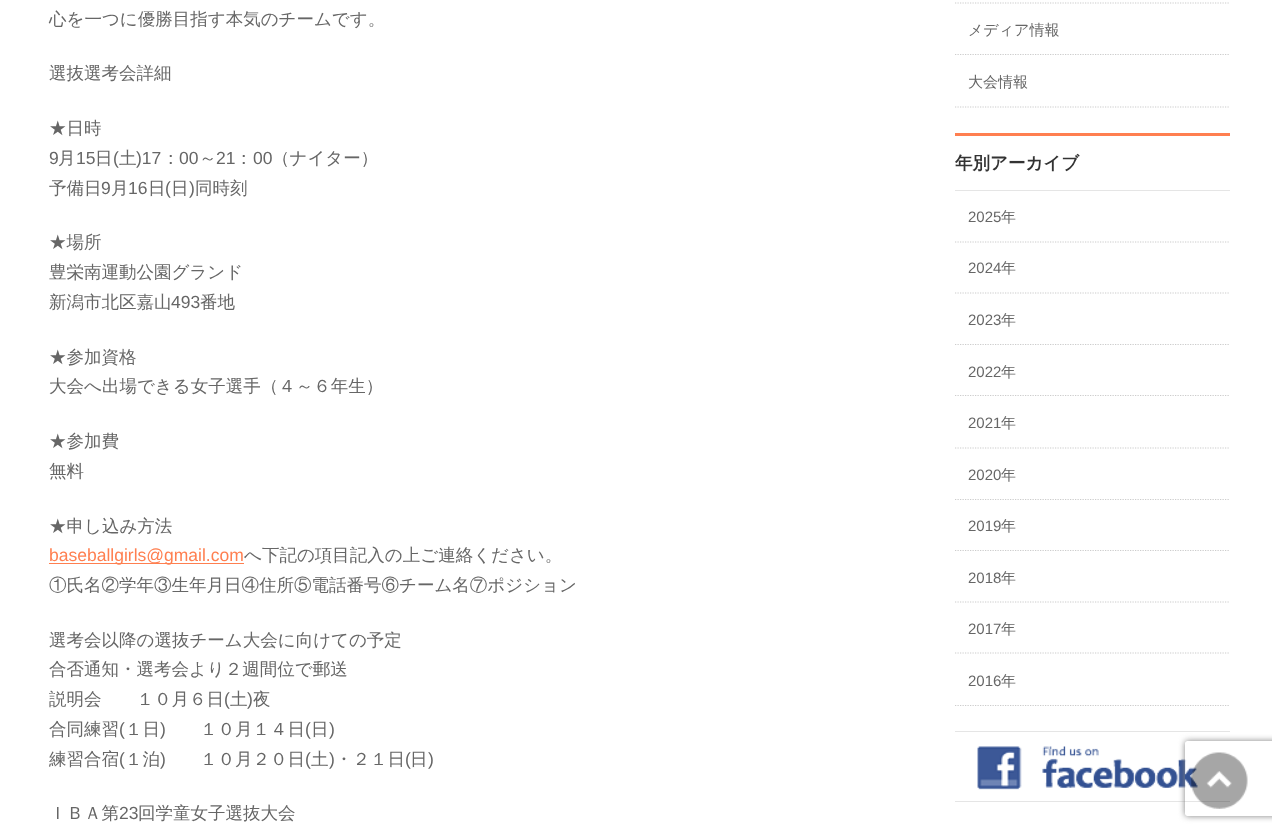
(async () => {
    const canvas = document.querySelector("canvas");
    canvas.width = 1272;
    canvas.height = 833;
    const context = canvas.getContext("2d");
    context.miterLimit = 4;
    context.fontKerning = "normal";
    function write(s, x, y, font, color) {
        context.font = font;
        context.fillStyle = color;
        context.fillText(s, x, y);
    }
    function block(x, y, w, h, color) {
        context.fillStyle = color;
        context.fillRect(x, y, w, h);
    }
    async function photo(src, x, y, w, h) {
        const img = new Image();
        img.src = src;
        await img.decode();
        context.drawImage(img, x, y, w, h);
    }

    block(0, 0, 1272, 833, "rgb(255, 255, 255)");
    write("心を一つに優勝目指す本気のチームです。", 49, 25, "500 17.5px WenQuanYi Zen Hei", "rgb(102, 102, 102)");
    write("選抜選考会詳細", 49, 79, "500 17.5px WenQuanYi Zen Hei", "rgb(102, 102, 102)");
    write("★日時", 49, 134, "500 17.5px WenQuanYi Zen Hei", "rgb(102, 102, 102)");
    write("9", 49, 164, "17.5px Liberation Sans", "rgb(102, 102, 102)");
    write("月", 58, 164, "500 17.5px WenQuanYi Zen Hei", "rgb(102, 102, 102)");
    write("15", 76, 164, "17.5px Liberation Sans", "rgb(102, 102, 102)");
    write("日", 95, 164, "500 17.5px WenQuanYi Zen Hei", "rgb(102, 102, 102)");
    write("(", 113, 164, "17.5px Liberation Sans", "rgb(102, 102, 102)");
    write("土", 119, 164, "500 17.5px WenQuanYi Zen Hei", "rgb(102, 102, 102)");
    write(")17", 136, 164, "17.5px Liberation Sans", "rgb(102, 102, 102)");
    write("：", 162, 164, "500 17.5px WenQuanYi Zen Hei", "rgb(102, 102, 102)");
    write("00", 179, 164, "17.5px Liberation Sans", "rgb(102, 102, 102)");
    write("～", 199, 164, "500 17.5px WenQuanYi Zen Hei", "rgb(102, 102, 102)");
    write("21", 216, 164, "17.5px Liberation Sans", "rgb(102, 102, 102)");
    write("：", 235, 164, "500 17.5px WenQuanYi Zen Hei", "rgb(102, 102, 102)");
    write("00", 253, 164, "17.5px Liberation Sans", "rgb(102, 102, 102)");
    write("（ナイター）", 272, 164, "500 17.5px WenQuanYi Zen Hei", "rgb(102, 102, 102)");
    write("予備日", 49, 194, "500 17.5px WenQuanYi Zen Hei", "rgb(102, 102, 102)");
    write("9", 101, 194, "17.5px Liberation Sans", "rgb(102, 102, 102)");
    write("月", 111, 194, "500 17.5px WenQuanYi Zen Hei", "rgb(102, 102, 102)");
    write("16", 128, 194, "17.5px Liberation Sans", "rgb(102, 102, 102)");
    write("日", 148, 194, "500 17.5px WenQuanYi Zen Hei", "rgb(102, 102, 102)");
    write("(", 165, 194, "17.5px Liberation Sans", "rgb(102, 102, 102)");
    write("日", 171, 194, "500 17.5px WenQuanYi Zen Hei", "rgb(102, 102, 102)");
    write(")", 189, 194, "17.5px Liberation Sans", "rgb(102, 102, 102)");
    write("同時刻", 195, 194, "500 17.5px WenQuanYi Zen Hei", "rgb(102, 102, 102)");
    write("★場所", 49, 248, "500 17.5px WenQuanYi Zen Hei", "rgb(102, 102, 102)");
    write("豊栄南運動公園グランド", 49, 278, "500 17.5px WenQuanYi Zen Hei", "rgb(102, 102, 102)");
    write("新潟市北区嘉山", 49, 308, "500 17.5px WenQuanYi Zen Hei", "rgb(102, 102, 102)");
    write("493", 171, 308, "17.5px Liberation Sans", "rgb(102, 102, 102)");
    write("番地", 200, 308, "500 17.5px WenQuanYi Zen Hei", "rgb(102, 102, 102)");
    write("★参加資格", 49, 363, "500 17.5px WenQuanYi Zen Hei", "rgb(102, 102, 102)");
    write("大会へ出場できる女子選手（４～６年生）", 49, 392, "500 17.5px WenQuanYi Zen Hei", "rgb(102, 102, 102)");
    write("★参加費", 49, 447, "500 17.5px WenQuanYi Zen Hei", "rgb(102, 102, 102)");
    write("無料", 49, 477, "500 17.5px WenQuanYi Zen Hei", "rgb(102, 102, 102)");
    write("★申し込み方法", 49, 532, "500 17.5px WenQuanYi Zen Hei", "rgb(102, 102, 102)");
    block(49, 563, 195, 1, "rgb(255, 127, 80)");
    write("baseballgirls@gmail.com", 49, 561, "17.5px Liberation Sans", "rgb(255, 127, 80)");
    write("へ下記の項目記入の上ご連絡ください。", 244, 561, "500 17.5px WenQuanYi Zen Hei", "rgb(102, 102, 102)");
    write("①氏名②学年③生年月日④住所⑤電話番号⑥チーム名⑦ポジション", 49, 591, "500 17.5px WenQuanYi Zen Hei", "rgb(102, 102, 102)");
    write("選考会以降の選抜チーム大会に向けての予定", 49, 646, "500 17.5px WenQuanYi Zen Hei", "rgb(102, 102, 102)");
    write("合否通知・選考会より２週間位で郵送", 49, 675, "500 17.5px WenQuanYi Zen Hei", "rgb(102, 102, 102)");
    write("説明会　　１０月６日", 49, 705, "500 17.5px WenQuanYi Zen Hei", "rgb(102, 102, 102)");
    write("(", 224, 705, "17.5px Liberation Sans", "rgb(102, 102, 102)");
    write("土", 230, 705, "500 17.5px WenQuanYi Zen Hei", "rgb(102, 102, 102)");
    write(")", 247, 705, "17.5px Liberation Sans", "rgb(102, 102, 102)");
    write("夜", 253, 705, "500 17.5px WenQuanYi Zen Hei", "rgb(102, 102, 102)");
    write("合同練習", 49, 735, "500 17.5px WenQuanYi Zen Hei", "rgb(102, 102, 102)");
    write("(", 119, 735, "17.5px Liberation Sans", "rgb(102, 102, 102)");
    write("１日", 125, 735, "500 17.5px WenQuanYi Zen Hei", "rgb(102, 102, 102)");
    write(")", 160, 735, "17.5px Liberation Sans", "rgb(102, 102, 102)");
    write("１０月１４日", 200, 735, "500 17.5px WenQuanYi Zen Hei", "rgb(102, 102, 102)");
    write("(", 305, 735, "17.5px Liberation Sans", "rgb(102, 102, 102)");
    write("日", 311, 735, "500 17.5px WenQuanYi Zen Hei", "rgb(102, 102, 102)");
    write(")", 329, 735, "17.5px Liberation Sans", "rgb(102, 102, 102)");
    write("練習合宿", 49, 765, "500 17.5px WenQuanYi Zen Hei", "rgb(102, 102, 102)");
    write("(", 119, 765, "17.5px Liberation Sans", "rgb(102, 102, 102)");
    write("１泊", 125, 765, "500 17.5px WenQuanYi Zen Hei", "rgb(102, 102, 102)");
    write(")", 160, 765, "17.5px Liberation Sans", "rgb(102, 102, 102)");
    write("１０月２０日", 200, 765, "500 17.5px WenQuanYi Zen Hei", "rgb(102, 102, 102)");
    write("(", 305, 765, "17.5px Liberation Sans", "rgb(102, 102, 102)");
    write("土", 311, 765, "500 17.5px WenQuanYi Zen Hei", "rgb(102, 102, 102)");
    write(")", 329, 765, "17.5px Liberation Sans", "rgb(102, 102, 102)");
    write("・２１日", 335, 765, "500 17.5px WenQuanYi Zen Hei", "rgb(102, 102, 102)");
    write("(", 405, 765, "17.5px Liberation Sans", "rgb(102, 102, 102)");
    write("日", 410, 765, "500 17.5px WenQuanYi Zen Hei", "rgb(102, 102, 102)");
    write(")", 428, 765, "17.5px Liberation Sans", "rgb(102, 102, 102)");
    write("ＩＢＡ第", 49, 819, "500 17.5px WenQuanYi Zen Hei", "rgb(102, 102, 102)");
    write("23", 119, 819, "17.5px Liberation Sans", "rgb(102, 102, 102)");
    write("回学童女子選抜大会", 138, 819, "500 17.5px WenQuanYi Zen Hei", "rgb(102, 102, 102)");
    context.beginPath();
    context.moveTo(955, 3);
    context.lineTo(1230, 3);
    context.strokeStyle = "rgb(204, 204, 204)";
    context.lineWidth = 1.2;
    context.setLineDash([1.25, 1.25]);
    context.stroke();
    context.beginPath();
    context.moveTo(955, 54.5);
    context.lineTo(1230, 54.5);
    context.stroke();
    write("メディア情報", 968, 35, "500 15px WenQuanYi Zen Hei", "rgb(102, 102, 102)");
    context.beginPath();
    context.moveTo(955, 107);
    context.lineTo(1230, 107);
    context.stroke();
    write("大会情報", 968, 87, "500 15px WenQuanYi Zen Hei", "rgb(102, 102, 102)");
    block(955, 133, 275, 3, "rgb(255, 127, 80)");
    block(955, 190, 275, 1, "rgb(229, 229, 229)");
    write("年別アーカイブ", 955, 169, "bold 17.5px WenQuanYi Zen Hei", "rgb(51, 51, 51)");
    context.beginPath();
    context.moveTo(955, 242);
    context.lineTo(1230, 242);
    context.stroke();
    write("2025", 968, 222, "15px Liberation Sans", "rgb(102, 102, 102)");
    write("年", 1001, 222, "500 15px WenQuanYi Zen Hei", "rgb(102, 102, 102)");
    context.beginPath();
    context.moveTo(955, 293);
    context.lineTo(1230, 293);
    context.stroke();
    write("2024", 968, 273, "15px Liberation Sans", "rgb(102, 102, 102)");
    write("年", 1001, 273, "500 15px WenQuanYi Zen Hei", "rgb(102, 102, 102)");
    context.beginPath();
    context.moveTo(955, 344.5);
    context.lineTo(1230, 344.5);
    context.stroke();
    write("2023", 968, 325, "15px Liberation Sans", "rgb(102, 102, 102)");
    write("年", 1001, 325, "500 15px WenQuanYi Zen Hei", "rgb(102, 102, 102)");
    context.beginPath();
    context.moveTo(955, 395.5);
    context.lineTo(1230, 395.5);
    context.stroke();
    write("2022", 968, 377, "15px Liberation Sans", "rgb(102, 102, 102)");
    write("年", 1001, 377, "500 15px WenQuanYi Zen Hei", "rgb(102, 102, 102)");
    context.beginPath();
    context.moveTo(955, 448);
    context.lineTo(1230, 448);
    context.stroke();
    write("2021", 968, 428, "15px Liberation Sans", "rgb(102, 102, 102)");
    write("年", 1001, 428, "500 15px WenQuanYi Zen Hei", "rgb(102, 102, 102)");
    context.beginPath();
    context.moveTo(955, 499.5);
    context.lineTo(1230, 499.5);
    context.stroke();
    write("2020", 968, 480, "15px Liberation Sans", "rgb(102, 102, 102)");
    write("年", 1001, 480, "500 15px WenQuanYi Zen Hei", "rgb(102, 102, 102)");
    context.beginPath();
    context.moveTo(955, 550.5);
    context.lineTo(1230, 550.5);
    context.stroke();
    write("2019", 968, 531, "15px Liberation Sans", "rgb(102, 102, 102)");
    write("年", 1001, 531, "500 15px WenQuanYi Zen Hei", "rgb(102, 102, 102)");
    context.beginPath();
    context.moveTo(955, 602);
    context.lineTo(1230, 602);
    context.stroke();
    write("2018", 968, 583, "15px Liberation Sans", "rgb(102, 102, 102)");
    write("年", 1001, 583, "500 15px WenQuanYi Zen Hei", "rgb(102, 102, 102)");
    context.beginPath();
    context.moveTo(955, 653);
    context.lineTo(1230, 653);
    context.stroke();
    write("2017", 968, 634, "15px Liberation Sans", "rgb(102, 102, 102)");
    write("年", 1001, 634, "500 15px WenQuanYi Zen Hei", "rgb(102, 102, 102)");
    context.beginPath();
    context.moveTo(955, 705.5);
    context.lineTo(1230, 705.5);
    context.stroke();
    write("2016", 968, 686, "15px Liberation Sans", "rgb(102, 102, 102)");
    write("年", 1001, 686, "500 15px WenQuanYi Zen Hei", "rgb(102, 102, 102)");
    block(955, 731, 275, 1, "rgb(229, 229, 229)");
    block(955, 801, 275, 1, "rgb(229, 229, 229)");
    await photo("media/1.png", 977, 746, 221, 44);
    context.save();
    context.beginPath();
    context.moveTo(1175, 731);
    context.lineTo(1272, 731);
    context.lineTo(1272, 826);
    context.lineTo(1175, 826);
    context.closePath();
    context.moveTo(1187.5, 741);
    context.lineTo(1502.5, 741);
    context.bezierCurveTo(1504, 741, 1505, 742, 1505, 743.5);
    context.lineTo(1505, 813.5);
    context.bezierCurveTo(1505, 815, 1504, 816, 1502.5, 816);
    context.lineTo(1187.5, 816);
    context.bezierCurveTo(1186, 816, 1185, 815, 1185, 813.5);
    context.lineTo(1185, 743.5);
    context.bezierCurveTo(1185, 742, 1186, 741, 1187.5, 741);
    context.closePath();
    context.clip("evenodd");
    context.fillStyle = "rgb(128, 128, 128)";
    context.filter = "blur(3px)";
    context.beginPath();
    context.roundRect(1185, 741, 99, 75, 2.5);
    context.fill();
    context.filter = "none";
    context.restore();
    await photo("media/2.png", 1191, 752, 57, 57);
})();
